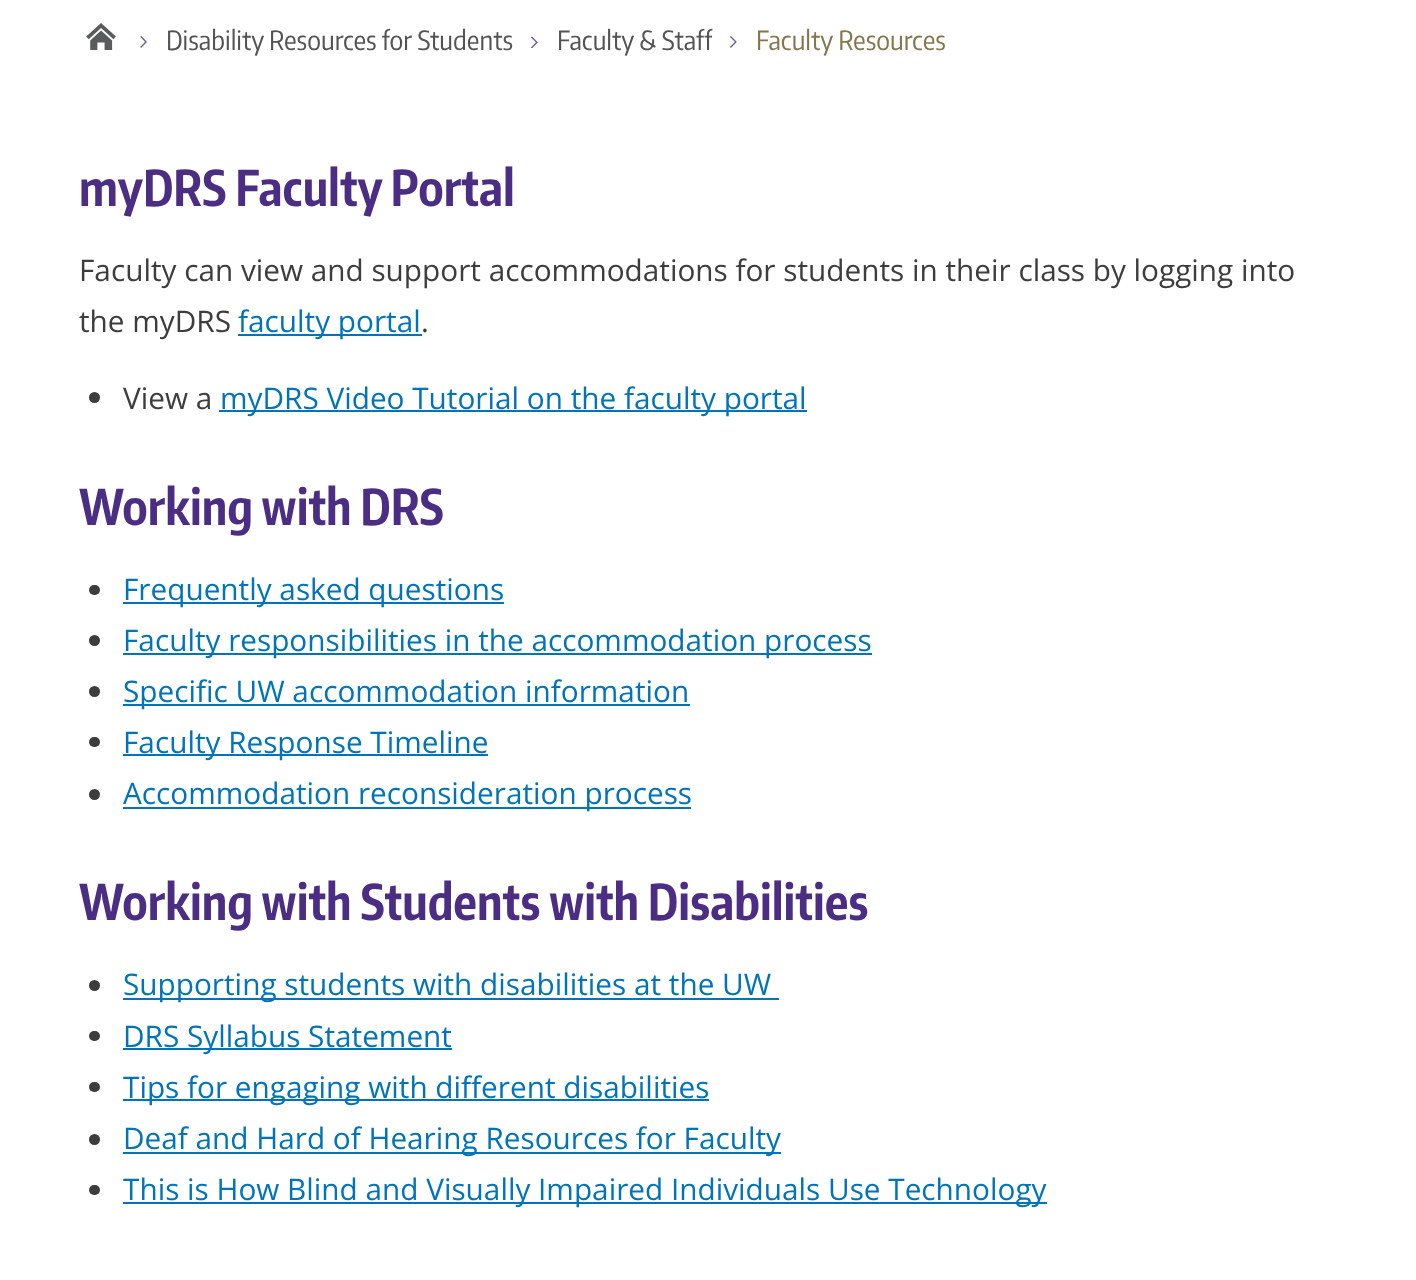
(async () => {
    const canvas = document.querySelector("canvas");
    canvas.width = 1416;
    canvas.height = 1280;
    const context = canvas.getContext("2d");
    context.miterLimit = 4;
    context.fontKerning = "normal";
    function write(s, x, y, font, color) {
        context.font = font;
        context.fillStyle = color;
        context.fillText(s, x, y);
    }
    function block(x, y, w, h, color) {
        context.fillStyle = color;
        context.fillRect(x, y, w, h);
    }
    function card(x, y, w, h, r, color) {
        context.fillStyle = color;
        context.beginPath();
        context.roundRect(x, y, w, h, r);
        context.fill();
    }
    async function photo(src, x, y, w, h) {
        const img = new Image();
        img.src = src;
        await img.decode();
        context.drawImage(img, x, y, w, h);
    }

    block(0, 0, 1416, 1280, "rgb(255, 255, 255)");
    await photo("media/1.png", 86, 23, 30, 27);
    await photo("media/2.png", 140, 36, 7, 12);
    write("Disability Resources for Students", 166, 50, "26.25px Encode Sans Condensed", "rgb(83, 83, 83)");
    await photo("media/3.png", 531, 36, 7, 12);
    block(512, 45, 1, 2, "rgba(255, 255, 255, 0.12)");
    write("Faculty & Staff", 557, 50, "26.25px Encode Sans Condensed", "rgb(83, 83, 83)");
    block(712, 28, 1, 3, "rgba(255, 255, 255, 0.38)");
    await photo("media/4.png", 730, 36, 7, 12);
    write("Faculty Resources", 756, 50, "26.25px Encode Sans Condensed", "rgb(133, 117, 77)");
    write("myDRS Faculty Portal", 79, 206, "bold 49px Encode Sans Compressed", "rgb(75, 46, 131)");
    write("Faculty can view and support accommodations for students in their class by logging into", 79, 281, "29.75px Open Sans", "rgb(61, 61, 61)");
    write("the myDRS", 79, 332, "29.75px Open Sans", "rgb(61, 61, 61)");
    block(238, 334, 184, 2, "rgb(0, 116, 187)");
    write("faculty portal", 238, 332, "29.75px Open Sans", "rgb(0, 116, 187)");
    write(".", 421, 332, "29.75px Open Sans", "rgb(61, 61, 61)");
    context.beginPath();
    context.arc(94.5, 397.5, 5.5, 0, Math.PI * 2);
    context.fill();
    write("View a", 123, 409, "29.75px Open Sans", "rgb(61, 61, 61)");
    block(219, 410, 588, 2, "rgb(0, 116, 187)");
    write("myDRS Video Tutorial on the faculty portal", 220, 409, "29.75px Open Sans", "rgb(0, 116, 187)");
    write("Working with DRS", 79, 525, "bold 49px Encode Sans Compressed", "rgb(75, 46, 131)");
    card(89, 585, 11, 10, 5, "rgb(61, 61, 61)");
    block(123, 602, 381, 2, "rgb(0, 116, 187)");
    write("Frequently asked questions", 123, 600, "29.75px Open Sans", "rgb(0, 116, 187)");
    context.fillStyle = "rgb(61, 61, 61)";
    context.beginPath();
    context.arc(94.5, 640.5, 5.5, 0, Math.PI * 2);
    context.fill();
    block(123, 653, 749, 2, "rgb(0, 116, 187)");
    write("Faculty responsibilities in the accommodation process", 123, 651, "29.75px Open Sans", "rgb(0, 116, 187)");
    context.fillStyle = "rgb(61, 61, 61)";
    context.beginPath();
    context.arc(94.5, 691.5, 5.5, 0, Math.PI * 2);
    context.fill();
    block(123, 704, 567, 2, "rgb(0, 116, 187)");
    write("Specific UW accommodation information", 123, 702, "29.75px Open Sans", "rgb(0, 116, 187)");
    card(89, 737, 11, 10, 5, "rgb(61, 61, 61)");
    block(123, 754, 365, 2, "rgb(0, 116, 187)");
    write("Faculty Response Timeline", 123, 753, "29.75px Open Sans", "rgb(0, 116, 187)");
    context.fillStyle = "rgb(61, 61, 61)";
    context.beginPath();
    context.arc(94.5, 794.5, 5.5, 0, Math.PI * 2);
    context.fill();
    block(123, 807, 568, 2, "rgb(0, 116, 187)");
    write("Accommodation reconsideration process", 123, 804, "29.75px Open Sans", "rgb(0, 116, 187)");
    write("Working with Students with Disabilities", 79, 920, "bold 49px Encode Sans Compressed", "rgb(75, 46, 131)");
    context.fillStyle = "rgb(61, 61, 61)";
    context.beginPath();
    context.arc(94.5, 985.5, 5.5, 0, Math.PI * 2);
    context.fill();
    block(123, 998, 656, 2, "rgb(0, 116, 187)");
    write("Supporting students with disabilities at the UW", 123, 995, "29.75px Open Sans", "rgb(0, 116, 187)");
    card(89, 1031, 11, 10, 5, "rgb(61, 61, 61)");
    block(123, 1048, 329, 2, "rgb(0, 116, 187)");
    write("DRS Syllabus Statement", 123, 1047, "29.75px Open Sans", "rgb(0, 116, 187)");
    card(89, 1082, 11, 10, 5, "rgb(61, 61, 61)");
    block(123, 1099, 586, 2, "rgb(0, 116, 187)");
    write("Tips for engaging with different disabilities", 123, 1098, "29.75px Open Sans", "rgb(0, 116, 187)");
    context.fillStyle = "rgb(61, 61, 61)";
    context.beginPath();
    context.arc(94.5, 1139.5, 5.5, 0, Math.PI * 2);
    context.fill();
    block(123, 1152, 658, 2, "rgb(0, 116, 187)");
    write("Deaf and Hard of Hearing Resources for Faculty", 123, 1149, "29.75px Open Sans", "rgb(0, 116, 187)");
    card(89, 1185, 11, 10, 5, "rgb(61, 61, 61)");
    block(123, 1202, 924, 2, "rgb(0, 116, 187)");
    write("This is How Blind and Visually Impaired Individuals Use Technology", 123, 1200, "29.75px Open Sans", "rgb(0, 116, 187)");
})();
